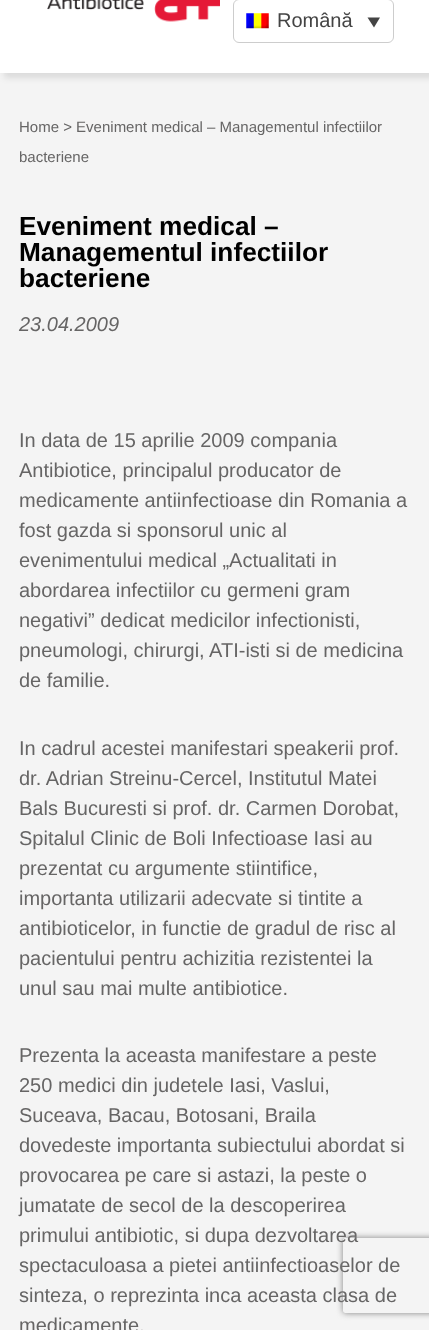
(async () => {
    const canvas = document.querySelector("canvas");
    canvas.width = 429;
    canvas.height = 1330;
    const context = canvas.getContext("2d");
    context.miterLimit = 4;
    context.fontKerning = "normal";
    function write(s, x, y, font, color) {
        context.font = font;
        context.fillStyle = color;
        context.fillText(s, x, y);
    }
    function block(x, y, w, h, color) {
        context.fillStyle = color;
        context.fillRect(x, y, w, h);
    }
    async function photo(src, x, y, w, h) {
        const img = new Image();
        img.src = src;
        await img.decode();
        context.drawImage(img, x, y, w, h);
    }

    block(0, 0, 429, 1330, "rgb(244, 244, 244)");
    context.fillStyle = "rgba(0, 0, 0, 0.1)";
    context.filter = "blur(3px)";
    context.beginPath();
    context.rect(4, -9, 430, 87);
    context.fill();
    context.filter = "none";
    block(0, 0, 429, 73, "rgb(255, 255, 255)");
    await photo("media/1.png", 47, 0, 173, 22);
    context.beginPath();
    context.roundRect(233.5, -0.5, 160, 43, 5.5);
    context.strokeStyle = "rgb(205, 205, 205)";
    context.stroke();
    await photo("media/2.png", 246, 13, 23, 16);
    write("Română", 277, 27, "20px Liberation Sans", "rgb(68, 68, 68)");
    context.beginPath();
    context.moveTo(367.5, 17.5);
    context.lineTo(380, 17.5);
    context.lineTo(374, 27.5);
    context.closePath();
    context.fill();
    write("Home > Eveniment medical – Managementul infectiilor", 19, 132, "15px Liberation Sans", "rgb(102, 101, 101)");
    write("bacteriene", 19, 162, "15px Liberation Sans", "rgb(102, 101, 101)");
    write("Eveniment medical –", 19, 235, "bold 26.25px Liberation Sans", "rgb(0, 0, 0)");
    write("Managementul infectiilor", 19, 261, "bold 26.25px Liberation Sans", "rgb(0, 0, 0)");
    write("bacteriene", 19, 287, "bold 26.25px Liberation Sans", "rgb(0, 0, 0)");
    write("23.04.2009", 19, 331, "italic 20px Liberation Sans", "rgb(102, 101, 101)");
    write("In data de 15 aprilie 2009 compania", 19, 447, "20px Liberation Sans", "rgb(102, 101, 101)");
    write("Antibiotice, principalul producator de", 19, 477, "20px Liberation Sans", "rgb(102, 101, 101)");
    write("medicamente antiinfectioase din Romania a", 19, 507, "20px Liberation Sans", "rgb(102, 101, 101)");
    write("fost gazda si sponsorul unic al", 19, 537, "20px Liberation Sans", "rgb(102, 101, 101)");
    write("evenimentului medical „Actualitati in", 19, 567, "20px Liberation Sans", "rgb(102, 101, 101)");
    write("abordarea infectiilor cu germeni gram", 19, 597, "20px Liberation Sans", "rgb(102, 101, 101)");
    write("negativi” dedicat medicilor infectionisti,", 19, 627, "20px Liberation Sans", "rgb(102, 101, 101)");
    write("pneumologi, chirurgi, ATI-isti si de medicina", 19, 657, "20px Liberation Sans", "rgb(102, 101, 101)");
    write("de familie.", 19, 687, "20px Liberation Sans", "rgb(102, 101, 101)");
    write("In cadrul acestei manifestari speakerii prof.", 19, 755, "20px Liberation Sans", "rgb(102, 101, 101)");
    write("dr. Adrian Streinu-Cercel, Institutul Matei", 19, 785, "20px Liberation Sans", "rgb(102, 101, 101)");
    write("Bals Bucuresti si prof. dr. Carmen Dorobat,", 19, 815, "20px Liberation Sans", "rgb(102, 101, 101)");
    write("Spitalul Clinic de Boli Infectioase Iasi au", 19, 845, "20px Liberation Sans", "rgb(102, 101, 101)");
    write("prezentat cu argumente stiintifice,", 19, 875, "20px Liberation Sans", "rgb(102, 101, 101)");
    write("importanta utilizarii adecvate si tintite a", 19, 905, "20px Liberation Sans", "rgb(102, 101, 101)");
    write("antibioticelor, in functie de gradul de risc al", 19, 935, "20px Liberation Sans", "rgb(102, 101, 101)");
    write("pacientului pentru achizitia rezistentei la", 19, 965, "20px Liberation Sans", "rgb(102, 101, 101)");
    write("unul sau mai multe antibiotice.", 19, 995, "20px Liberation Sans", "rgb(102, 101, 101)");
    write("Prezenta la aceasta manifestare a peste", 19, 1062, "20px Liberation Sans", "rgb(102, 101, 101)");
    write("250 medici din judetele Iasi, Vaslui,", 19, 1092, "20px Liberation Sans", "rgb(102, 101, 101)");
    write("Suceava, Bacau, Botosani, Braila", 19, 1122, "20px Liberation Sans", "rgb(102, 101, 101)");
    write("dovedeste importanta subiectului abordat si", 19, 1152, "20px Liberation Sans", "rgb(102, 101, 101)");
    write("provocarea pe care si astazi, la peste o", 19, 1182, "20px Liberation Sans", "rgb(102, 101, 101)");
    write("jumatate de secol de la descoperirea", 19, 1212, "20px Liberation Sans", "rgb(102, 101, 101)");
    write("primului antibiotic, si dupa dezvoltarea", 19, 1242, "20px Liberation Sans", "rgb(102, 101, 101)");
    write("spectaculoasa a pietei antiinfectioaselor de", 19, 1272, "20px Liberation Sans", "rgb(102, 101, 101)");
    write("sinteza, o reprezinta inca aceasta clasa de", 19, 1302, "20px Liberation Sans", "rgb(102, 101, 101)");
    write("medicamente.", 19, 1332, "20px Liberation Sans", "rgb(102, 101, 101)");
    context.save();
    context.beginPath();
    context.moveTo(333, 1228);
    context.lineTo(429, 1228);
    context.lineTo(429, 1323);
    context.lineTo(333, 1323);
    context.closePath();
    context.moveTo(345.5, 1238);
    context.lineTo(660.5, 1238);
    context.bezierCurveTo(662, 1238, 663, 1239, 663, 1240.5);
    context.lineTo(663, 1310.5);
    context.bezierCurveTo(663, 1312, 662, 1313, 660.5, 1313);
    context.lineTo(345.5, 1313);
    context.bezierCurveTo(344, 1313, 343, 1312, 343, 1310.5);
    context.lineTo(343, 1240.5);
    context.bezierCurveTo(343, 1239, 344, 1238, 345.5, 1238);
    context.closePath();
    context.clip("evenodd");
    context.fillStyle = "rgb(128, 128, 128)";
    context.filter = "blur(3px)";
    context.beginPath();
    context.roundRect(343, 1238, 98, 75, 2.5);
    context.fill();
    context.filter = "none";
    context.restore();
})();
